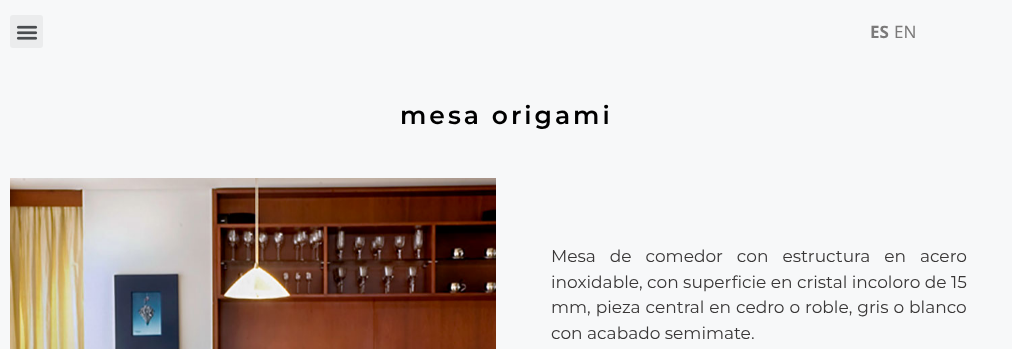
(async () => {
    const canvas = document.querySelector("canvas");
    canvas.width = 1012;
    canvas.height = 349;
    const context = canvas.getContext("2d");
    context.miterLimit = 4;
    context.fontKerning = "normal";
    function write(s, x, y, font, color) {
        context.font = font;
        context.fillStyle = color;
        context.fillText(s, x, y);
    }
    function block(x, y, w, h, color) {
        context.fillStyle = color;
        context.fillRect(x, y, w, h);
    }
    function card(x, y, w, h, r, color) {
        context.fillStyle = color;
        context.beginPath();
        context.roundRect(x, y, w, h, r);
        context.fill();
    }
    async function photo(src, x, y, w, h) {
        const img = new Image();
        img.src = src;
        await img.decode();
        context.drawImage(img, x, y, w, h);
    }

    block(0, 0, 1012, 349, "rgb(247, 248, 249)");
    card(10, 15, 33, 33, 3, "rgb(235, 236, 237)");
    await photo("media/1.png", 16, 25, 22, 15);
    write("ES", 870, 38, "bold 17px Noto Sans", "rgb(123, 122, 122)");
    write("EN", 894, 38, "17px Noto Sans", "rgb(123, 122, 122)");
    context.letterSpacing = "3px";
    write("mesa origami", 400, 124, "600 25px Montserrat", "rgb(0, 0, 0)");
    await photo("media/2.png", 10, 178, 486, 171);
    context.letterSpacing = "0px";
    context.wordSpacing = "9.5px";
    write("Mesa de comedor con estructura en acero", 551, 262, "17px Montserrat", "rgb(57, 55, 55)");
    context.wordSpacing = "0px";
    write("inoxidable, con superficie en cristal incoloro de 15", 551, 288, "17px Montserrat", "rgb(57, 55, 55)");
    context.wordSpacing = "0.5px";
    write("mm, pieza central en cedro o roble, gris o blanco", 551, 313, "17px Montserrat", "rgb(57, 55, 55)");
    context.wordSpacing = "0px";
    write("con acabado semimate.", 551, 339, "17px Montserrat", "rgb(57, 55, 55)");
})();
